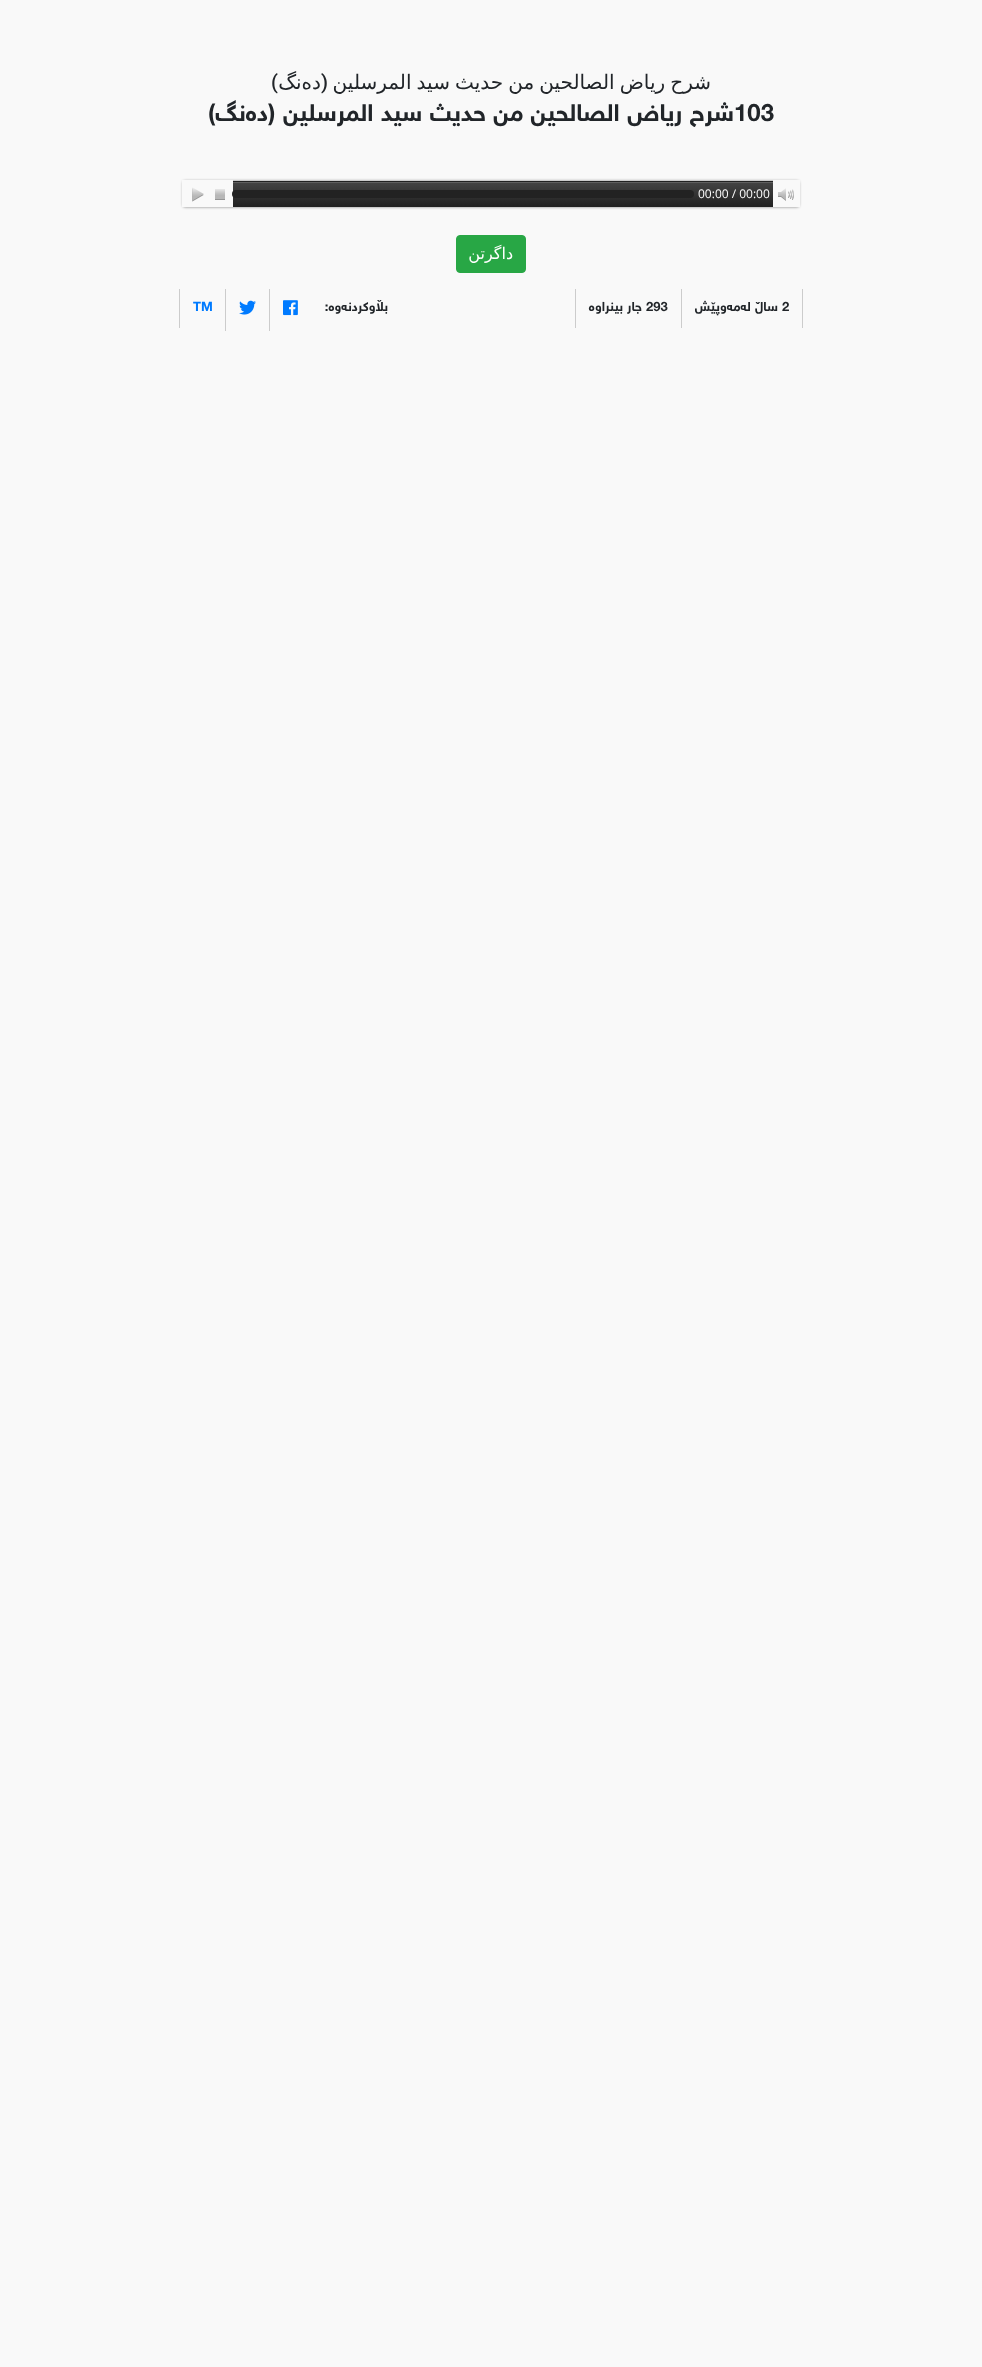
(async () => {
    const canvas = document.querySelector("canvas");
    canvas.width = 982;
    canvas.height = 2367;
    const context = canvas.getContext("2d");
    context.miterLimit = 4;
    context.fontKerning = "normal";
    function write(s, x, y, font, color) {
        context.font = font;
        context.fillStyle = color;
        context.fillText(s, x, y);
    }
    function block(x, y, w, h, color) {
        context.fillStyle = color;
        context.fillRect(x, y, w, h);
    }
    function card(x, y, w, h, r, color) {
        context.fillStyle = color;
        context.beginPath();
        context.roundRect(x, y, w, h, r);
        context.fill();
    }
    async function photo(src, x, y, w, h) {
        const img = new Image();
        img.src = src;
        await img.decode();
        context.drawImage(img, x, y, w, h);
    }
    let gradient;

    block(0, 0, 982, 2367, "rgb(249, 249, 249)");
    context.wordSpacing = "-1.25px";
    context.direction = "rtl";
    write("شرح رياض الصالحين من حديث سيد المرسلين", 711, 89, "20px DejaVu Sans", "rgb(33, 37, 41)");
    context.wordSpacing = "0px";
    write("(", 328, 89, "500 20px Roboto", "rgb(33, 37, 41)");
    write("دەنگ", 321, 89, "20px DejaVu Sans", "rgb(33, 37, 41)");
    write(")", 278, 89, "500 20px Roboto", "rgb(33, 37, 41)");
    context.direction = "ltr";
    write("103", 734, 121, "bold 24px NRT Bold", "rgb(33, 37, 41)");
    context.direction = "rtl";
    write("شرح رياض الصالحين من حديث سيد المرسلين (دەنگ)", 734, 121, "bold 24px NRT Bold", "rgb(33, 37, 41)");
    context.fillStyle = "rgba(0, 0, 0, 0.5)";
    context.filter = "blur(1.5px)";
    context.beginPath();
    context.roundRect(183, 181, 616, 26, 2);
    context.fill();
    context.filter = "none";
    gradient = context.createLinearGradient(491, 182, 491, 206);
    gradient.addColorStop(0, "rgb(68, 68, 68)");
    gradient.addColorStop(1, "rgb(34, 34, 34)");
    context.fillStyle = gradient;
    context.fillRect(233, 183, 540, 23);
    context.fillStyle = "rgb(95, 95, 95)";
    context.beginPath();
    context.moveTo(185, 183);
    context.lineTo(797, 183);
    context.bezierCurveTo(798, 183, 798, 183, 798, 184);
    context.bezierCurveTo(798, 183, 798, 182, 797, 182);
    context.lineTo(185, 182);
    context.bezierCurveTo(184, 182, 184, 183, 184, 184);
    context.bezierCurveTo(184, 183, 184, 183, 185, 183);
    context.closePath();
    context.fill();
    context.strokeStyle = "rgb(34, 34, 34)";
    context.strokeRect(183.5, 181.5, 615, 25);
    await photo("media/1.png", 773, 180, 27, 27);
    context.direction = "ltr";
    write("00:00 / 00:00", 698, 198, "12px Open Sans", "rgb(255, 255, 255)");
    await photo("media/2.png", 209, 180, 24, 27);
    card(232, 190, 462, 8, 4, "rgb(34, 34, 34)");
    await photo("media/3.png", 182, 180, 27, 27);
    context.fillStyle = "rgb(40, 167, 69)";
    context.beginPath();
    context.roundRect(456.5, 235.5, 69, 37, 3.5);
    context.fill();
    context.strokeStyle = "rgb(40, 167, 69)";
    context.stroke();
    context.direction = "rtl";
    write("داگرتن", 513, 259, "16px DejaVu Sans", "rgb(255, 255, 255)");
    block(802, 289, 1, 39, "rgb(204, 204, 204)");
    block(681, 289, 1, 39, "rgb(204, 204, 204)");
    context.direction = "ltr";
    write("2", 782, 311, "bold 13px NRT Bold", "rgb(33, 37, 41)");
    context.direction = "rtl";
    write("ساڵ لەمەوپێش", 778, 311, "bold 13px NRT Bold", "rgb(33, 37, 41)");
    block(575, 289, 1, 39, "rgb(204, 204, 204)");
    context.direction = "ltr";
    write("293", 646, 311, "bold 13px NRT Bold", "rgb(33, 37, 41)");
    context.direction = "rtl";
    write("جار بینراوە", 642, 311, "bold 13px NRT Bold", "rgb(33, 37, 41)");
    write("بڵاوکردنەوە:", 388, 311, "bold 13px NRT Bold", "rgb(33, 37, 41)");
    block(269, 289, 1, 42, "rgb(204, 204, 204)");
    await photo("media/4.png", 283, 300, 15, 16);
    block(225, 289, 1, 42, "rgb(204, 204, 204)");
    await photo("media/5.png", 239, 300, 17, 15);
    block(179, 289, 1, 39, "rgb(204, 204, 204)");
    context.direction = "ltr";
    write("TM", 193, 311, "bold 13px NRT Bold", "rgb(0, 123, 255)");
})();
